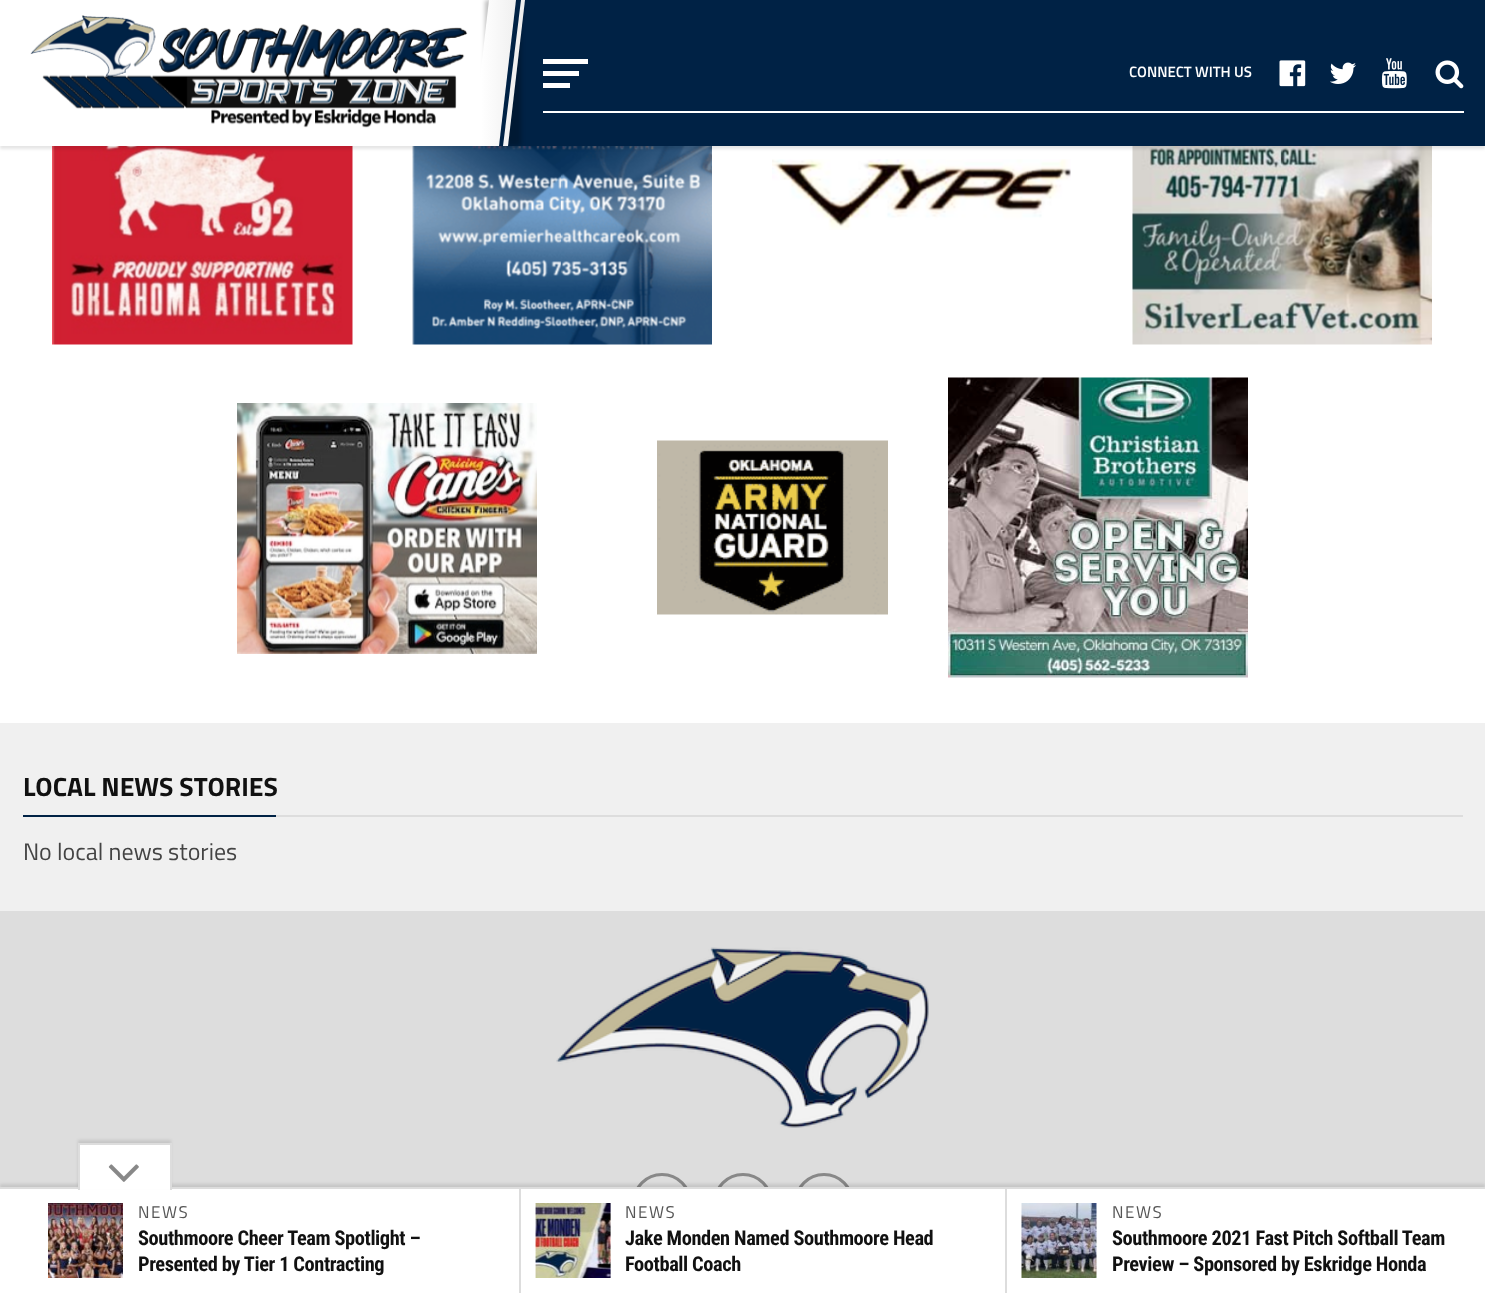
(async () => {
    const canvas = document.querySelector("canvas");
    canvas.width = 1485;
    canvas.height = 1293;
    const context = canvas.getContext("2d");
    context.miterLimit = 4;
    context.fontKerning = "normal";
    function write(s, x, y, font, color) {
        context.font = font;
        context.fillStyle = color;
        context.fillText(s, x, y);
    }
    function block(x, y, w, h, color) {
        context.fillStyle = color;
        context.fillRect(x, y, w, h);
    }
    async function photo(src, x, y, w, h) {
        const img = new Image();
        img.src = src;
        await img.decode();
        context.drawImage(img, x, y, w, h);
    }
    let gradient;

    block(0, 0, 1485, 1293, "rgb(221, 221, 221)");
    block(0, 146, 1485, 577, "rgb(255, 255, 255)");
    await photo("media/6.png", 52, 146, 301, 199);
    await photo("media/7.png", 412, 146, 300, 199);
    await photo("media/9.png", 1132, 146, 300, 199);
    context.fillStyle = "rgba(0, 0, 0, 0.1)";
    context.filter = "blur(1.5px)";
    context.beginPath();
    context.rect(0, 3, 1485, 146);
    context.fill();
    context.filter = "none";
    block(0, 0, 489, 146, "rgb(255, 255, 255)");
    block(508, 0, 977, 146, "rgb(0, 34, 69)");
    context.fillStyle = "rgba(0, 0, 0, 0.25)";
    context.filter = "blur(2px)";
    context.beginPath();
    context.rect(485, 0, 36, 146);
    context.fill();
    context.filter = "none";
    gradient = context.createLinearGradient(481, 73, 517, 73);
    gradient.addColorStop(0, "rgb(255, 255, 255)");
    gradient.addColorStop(1, "rgb(239, 239, 239)");
    context.fillStyle = gradient;
    context.beginPath();
    context.moveTo(489, 0);
    context.lineTo(525, 0);
    context.lineTo(508, 146);
    context.lineTo(472, 146);
    context.closePath();
    context.fill();
    await photo("media/1.png", 30, 15, 438, 113);
    context.fillStyle = "rgb(0, 34, 69)";
    context.beginPath();
    context.moveTo(516, 0);
    context.lineTo(521, 0);
    context.lineTo(503, 146);
    context.lineTo(499, 146);
    context.closePath();
    context.fill();
    block(543, 111, 921, 2, "rgb(255, 255, 255)");
    block(543, 59, 45, 5, "rgb(255, 255, 255)");
    block(543, 71, 36, 5, "rgb(255, 255, 255)");
    block(543, 83, 27, 5, "rgb(255, 255, 255)");
    write("CONNECT WITH US", 1129, 77, "600 15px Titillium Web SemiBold", "rgb(255, 255, 255)");
    await photo("media/2.png", 1279, 60, 27, 27);
    await photo("media/3.png", 1330, 62, 26, 22);
    await photo("media/4.png", 1381, 58, 26, 31);
    await photo("media/5.png", 1435, 60, 29, 29);
    await photo("media/8.png", 772, 159, 299, 71);
    await photo("media/10.png", 237, 403, 300, 251);
    await photo("media/11.png", 657, 440, 231, 175);
    await photo("media/12.png", 948, 377, 300, 301);
    block(0, 723, 1485, 188, "rgb(240, 240, 240)");
    block(276, 815, 1187, 2, "rgb(221, 221, 221)");
    block(23, 815, 253, 2, "rgb(0, 34, 69)");
    write("LOCAL NEWS STORIES", 23, 796, "bold 26.5px Titillium Web", "rgb(17, 17, 17)");
    write("No local news stories", 23, 860, "24px Titillium Web", "rgb(68, 68, 68)");
    await photo("media/13.png", 556, 947, 373, 181);
    context.beginPath();
    context.arc(662, 1203, 28.5, 0, Math.PI * 2);
    context.strokeStyle = "rgb(136, 136, 136)";
    context.lineWidth = 3;
    context.stroke();
    context.beginPath();
    context.arc(743, 1203, 28.5, 0, Math.PI * 2);
    context.stroke();
    context.beginPath();
    context.arc(824, 1203, 28.5, 0, Math.PI * 2);
    context.stroke();
    context.fillStyle = "rgba(0, 0, 0, 0.1)";
    context.filter = "blur(1.5px)";
    context.beginPath();
    context.rect(0, 1184, 1485, 106);
    context.fill();
    context.filter = "none";
    block(0, 1189, 1485, 104, "rgb(255, 255, 255)");
    block(0, 1187, 1485, 2, "rgb(221, 221, 221)");
    context.fillStyle = "rgba(0, 0, 0, 0.1)";
    context.filter = "blur(1.5px)";
    context.beginPath();
    context.rect(78, 1140, 93, 47);
    context.fill();
    context.filter = "none";
    block(80, 1145, 90, 44, "rgb(255, 255, 255)");
    block(78, 1143, 93, 2, "rgb(221, 221, 221)");
    block(170, 1143, 2, 47, "rgb(221, 221, 221)");
    block(78, 1143, 2, 47, "rgb(221, 221, 221)");
    await photo("media/14.png", 108, 1164, 31, 18);
    await photo("media/15.png", 48, 1203, 75, 75);
    context.letterSpacing = "1.5px";
    write("NEWS", 138, 1218, "17px Titillium Web", "rgb(85, 85, 85)");
    context.letterSpacing = "-0.4px";
    write("Southmoore Cheer Team Spotlight –", 138, 1245, "bold 20.4px Roboto Condensed", "rgb(17, 17, 17)");
    write("Presented by Tier 1 Contracting", 138, 1271, "bold 20.4px Roboto Condensed", "rgb(17, 17, 17)");
    block(519, 1188, 2, 105, "rgb(221, 221, 221)");
    await photo("media/16.png", 535, 1203, 76, 75);
    context.letterSpacing = "1.5px";
    write("NEWS", 625, 1218, "17px Titillium Web", "rgb(85, 85, 85)");
    context.letterSpacing = "-0.4px";
    write("Jake Monden Named Southmoore Head", 625, 1245, "bold 20.4px Roboto Condensed", "rgb(17, 17, 17)");
    write("Football Coach", 625, 1271, "bold 20.4px Roboto Condensed", "rgb(17, 17, 17)");
    block(1005, 1188, 2, 105, "rgb(221, 221, 221)");
    await photo("media/17.png", 1021, 1203, 76, 75);
    context.letterSpacing = "1.5px";
    write("NEWS", 1112, 1218, "17px Titillium Web", "rgb(85, 85, 85)");
    context.letterSpacing = "-0.4px";
    write("Southmoore 2021 Fast Pitch Softball Team", 1112, 1245, "bold 20.4px Roboto Condensed", "rgb(17, 17, 17)");
    write("Preview – Sponsored by Eskridge Honda", 1112, 1271, "bold 20.4px Roboto Condensed", "rgb(17, 17, 17)");
})();
